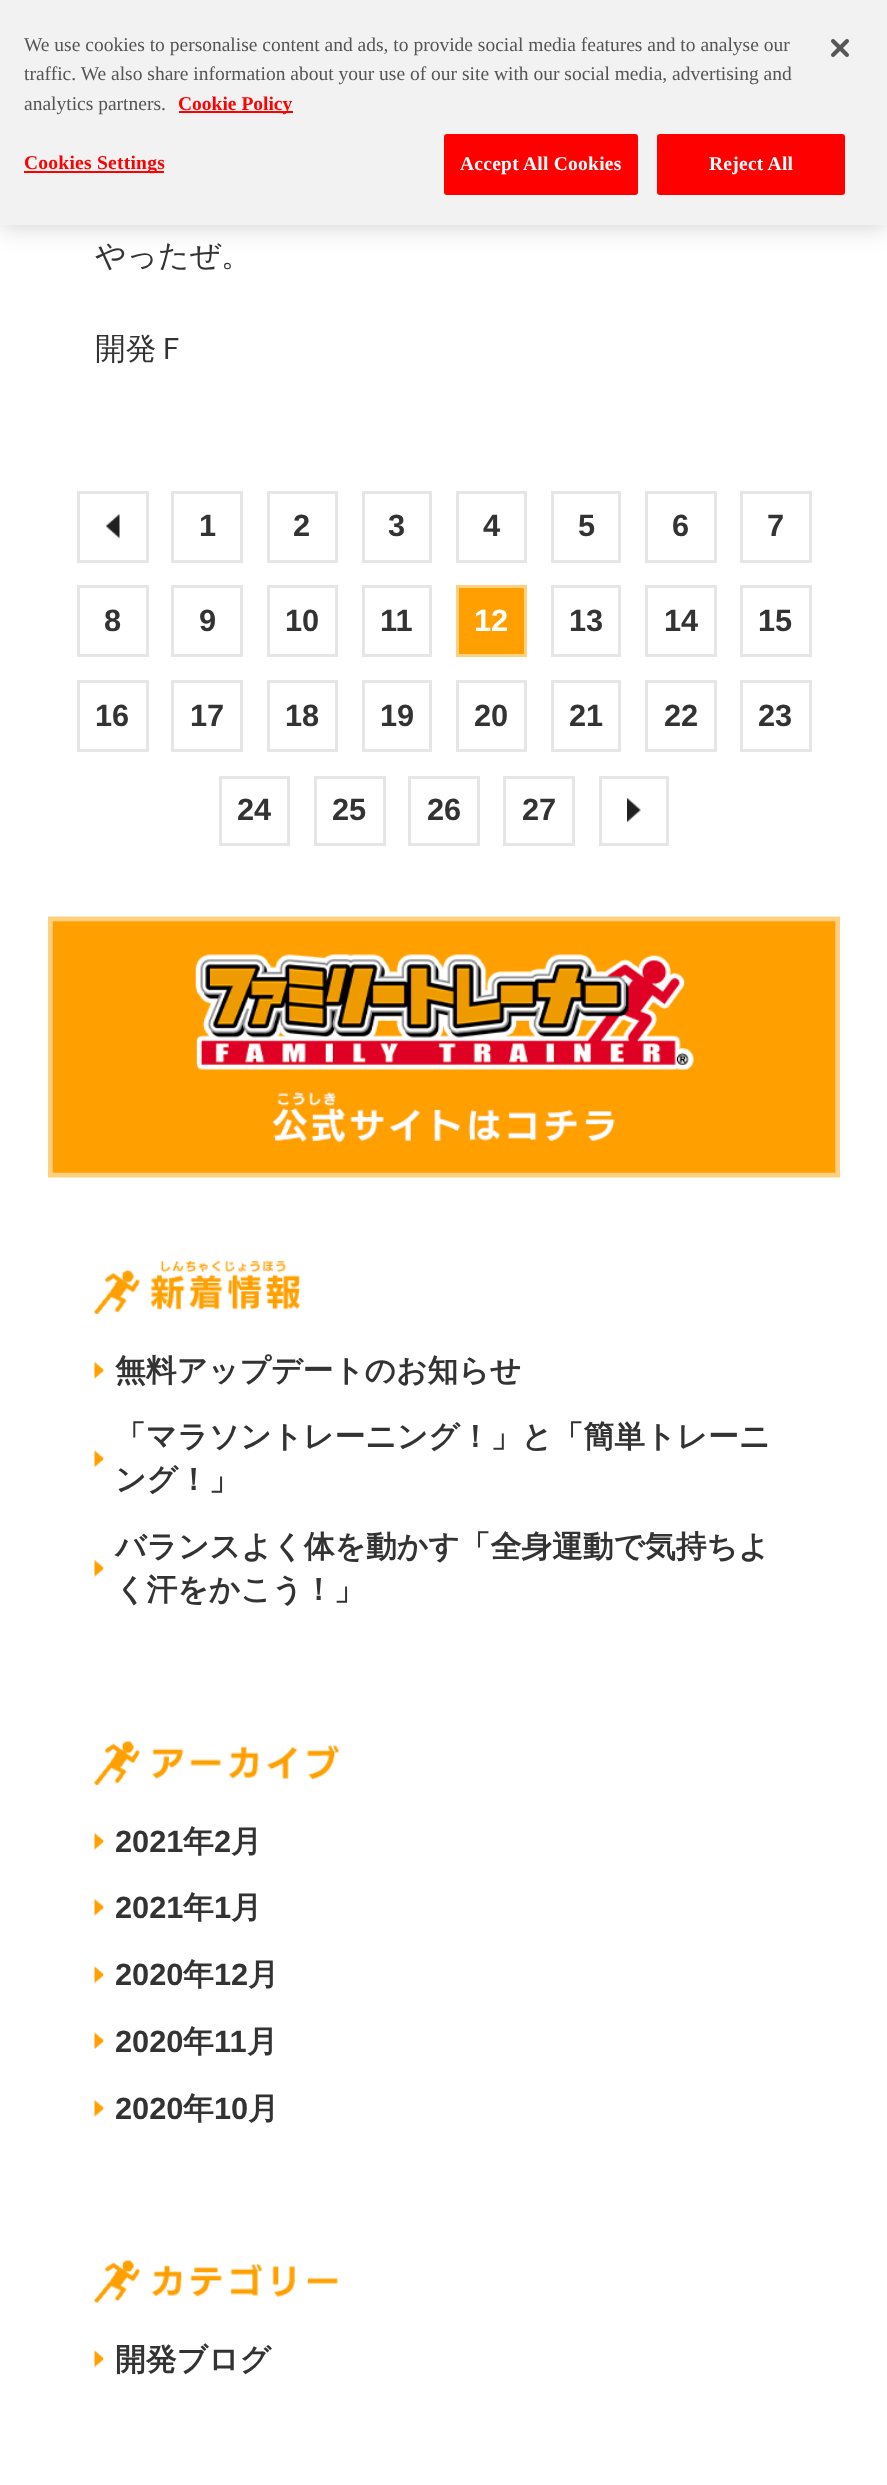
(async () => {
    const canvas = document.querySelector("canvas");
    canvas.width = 887;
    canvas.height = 2485;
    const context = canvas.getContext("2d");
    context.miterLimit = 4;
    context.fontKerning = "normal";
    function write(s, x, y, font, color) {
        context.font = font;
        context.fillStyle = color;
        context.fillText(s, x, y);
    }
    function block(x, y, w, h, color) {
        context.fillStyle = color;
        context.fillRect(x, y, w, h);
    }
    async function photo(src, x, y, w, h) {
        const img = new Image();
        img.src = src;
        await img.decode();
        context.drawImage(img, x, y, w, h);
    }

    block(0, 0, 887, 2485, "rgb(255, 255, 255)");
    context.fillStyle = "rgba(0, 0, 0, 0.2)";
    context.filter = "blur(13.5px)";
    context.beginPath();
    context.rect(0, 0, 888, 225);
    context.fill();
    context.filter = "none";
    block(0, 0, 887, 225, "rgb(242, 242, 242)");
    write("We use cookies to personalise content and ads, to provide social media features and to analyse our", 24, 51, "19.5px Liberation Serif", "rgb(85, 85, 85)");
    write("traffic. We also share information about your use of our site with our social media, advertising and", 24, 80, "19.5px Liberation Serif", "rgb(85, 85, 85)");
    write("analytics partners.", 24, 110, "19.5px Liberation Serif", "rgb(85, 85, 85)");
    block(179, 111, 114, 2, "rgb(255, 0, 0)");
    write("Cookie Policy", 178, 110, "bold 19.5px Liberation Serif", "rgb(255, 0, 0)");
    block(24, 171, 140, 2, "rgb(255, 0, 0)");
    context.letterSpacing = "0.25px";
    write("Cookies Settings", 24, 169, "bold 19.5px Liberation Serif", "rgb(255, 0, 0)");
    context.beginPath();
    context.roundRect(445, 135, 192, 59, 2);
    context.fill();
    context.strokeStyle = "rgb(255, 0, 0)";
    context.lineWidth = 2;
    context.stroke();
    write("Accept All Cookies", 460, 170, "bold 19.5px Liberation Serif", "rgb(255, 255, 255)");
    context.fillStyle = "rgb(255, 0, 0)";
    context.beginPath();
    context.roundRect(658, 135, 186, 59, 2);
    context.fill();
    context.stroke();
    write("Reject All", 709, 170, "bold 19.5px Liberation Serif", "rgb(255, 255, 255)");
    await photo("media/1.png", 831, 39, 18, 18);
    context.letterSpacing = "0px";
    write("やったぜ。", 95, 266, "500 30.75px WenQuanYi Zen Hei", "rgb(51, 51, 51)");
    write("開発Ｆ", 95, 359, "500 30.75px WenQuanYi Zen Hei", "rgb(51, 51, 51)");
    context.strokeStyle = "rgb(230, 230, 230)";
    context.lineWidth = 3;
    context.strokeRect(78.5, 492.5, 69, 69);
    await photo("media/2.png", 106, 514, 14, 25);
    context.strokeRect(172.5, 492.5, 69, 69);
    write("1", 199, 536, "bold 30.75px Liberation Sans", "rgb(51, 51, 51)");
    context.strokeRect(268.5, 492.5, 68, 69);
    write("2", 293, 536, "bold 30.75px Liberation Sans", "rgb(51, 51, 51)");
    context.strokeRect(363.5, 492.5, 67, 69);
    write("3", 388, 536, "bold 30.75px Liberation Sans", "rgb(51, 51, 51)");
    context.strokeRect(457.5, 492.5, 68, 69);
    write("4", 483, 536, "bold 30.75px Liberation Sans", "rgb(51, 51, 51)");
    context.strokeRect(552.5, 492.5, 67, 69);
    write("5", 578, 536, "bold 30.75px Liberation Sans", "rgb(51, 51, 51)");
    context.strokeRect(646.5, 492.5, 69, 69);
    write("6", 672, 536, "bold 30.75px Liberation Sans", "rgb(51, 51, 51)");
    context.strokeRect(741.5, 492.5, 69, 69);
    write("7", 767, 536, "bold 30.75px Liberation Sans", "rgb(51, 51, 51)");
    context.strokeRect(78.5, 586.5, 69, 69);
    write("8", 104, 631, "bold 30.75px Liberation Sans", "rgb(51, 51, 51)");
    context.strokeRect(172.5, 586.5, 69, 69);
    write("9", 199, 631, "bold 30.75px Liberation Sans", "rgb(51, 51, 51)");
    context.strokeRect(268.5, 586.5, 68, 69);
    write("10", 285, 631, "bold 30.75px Liberation Sans", "rgb(51, 51, 51)");
    context.strokeRect(363.5, 586.5, 67, 69);
    write("11", 380, 631, "bold 30.75px Liberation Sans", "rgb(51, 51, 51)");
    context.fillStyle = "rgb(255, 160, 0)";
    context.beginPath();
    context.rect(457.5, 586.5, 68, 69);
    context.fill();
    context.strokeStyle = "rgb(255, 208, 128)";
    context.stroke();
    write("12", 474, 631, "bold 30.75px Liberation Sans", "rgb(255, 255, 255)");
    context.strokeStyle = "rgb(230, 230, 230)";
    context.strokeRect(552.5, 586.5, 67, 69);
    write("13", 569, 631, "bold 30.75px Liberation Sans", "rgb(51, 51, 51)");
    context.strokeRect(646.5, 586.5, 69, 69);
    write("14", 664, 631, "bold 30.75px Liberation Sans", "rgb(51, 51, 51)");
    context.strokeRect(741.5, 586.5, 69, 69);
    write("15", 758, 631, "bold 30.75px Liberation Sans", "rgb(51, 51, 51)");
    context.strokeRect(78.5, 681.5, 69, 69);
    write("16", 95, 726, "bold 30.75px Liberation Sans", "rgb(51, 51, 51)");
    context.strokeRect(172.5, 681.5, 69, 69);
    write("17", 190, 726, "bold 30.75px Liberation Sans", "rgb(51, 51, 51)");
    context.strokeRect(268.5, 681.5, 68, 69);
    write("18", 285, 726, "bold 30.75px Liberation Sans", "rgb(51, 51, 51)");
    context.strokeRect(363.5, 681.5, 67, 69);
    write("19", 380, 726, "bold 30.75px Liberation Sans", "rgb(51, 51, 51)");
    context.strokeRect(457.5, 681.5, 68, 69);
    write("20", 474, 726, "bold 30.75px Liberation Sans", "rgb(51, 51, 51)");
    context.strokeRect(552.5, 681.5, 67, 69);
    write("21", 569, 726, "bold 30.75px Liberation Sans", "rgb(51, 51, 51)");
    context.strokeRect(646.5, 681.5, 69, 69);
    write("22", 664, 726, "bold 30.75px Liberation Sans", "rgb(51, 51, 51)");
    context.strokeRect(741.5, 681.5, 69, 69);
    write("23", 758, 726, "bold 30.75px Liberation Sans", "rgb(51, 51, 51)");
    context.strokeRect(220.5, 777.5, 68, 67);
    write("24", 237, 820, "bold 30.75px Liberation Sans", "rgb(51, 51, 51)");
    context.strokeRect(315.5, 777.5, 69, 67);
    write("25", 332, 820, "bold 30.75px Liberation Sans", "rgb(51, 51, 51)");
    context.strokeRect(409.5, 777.5, 69, 67);
    write("26", 427, 820, "bold 30.75px Liberation Sans", "rgb(51, 51, 51)");
    context.strokeRect(504.5, 777.5, 69, 67);
    write("27", 522, 820, "bold 30.75px Liberation Sans", "rgb(51, 51, 51)");
    context.strokeRect(600.5, 777.5, 67, 67);
    await photo("media/3.png", 627, 798, 14, 24);
    await photo("media/4.png", 48, 916, 792, 262);
    await photo("media/5.png", 94, 1260, 206, 54);
    await photo("media/6.png", 94, 1362, 10, 17);
    write("無料アップデートのお知らせ", 115, 1381, "bold 30.75px WenQuanYi Zen Hei", "rgb(51, 51, 51)");
    await photo("media/7.png", 94, 1450, 10, 17);
    write("「マラソントレーニング！」と「簡単トレーニ", 115, 1447, "bold 30.75px WenQuanYi Zen Hei", "rgb(51, 51, 51)");
    write("ング！」", 115, 1490, "bold 30.75px WenQuanYi Zen Hei", "rgb(51, 51, 51)");
    await photo("media/6.png", 94, 1560, 10, 17);
    write("バランスよく体を動かす「全身運動で気持ちよ", 115, 1557, "bold 30.75px WenQuanYi Zen Hei", "rgb(51, 51, 51)");
    write("く汗をかこう！」", 115, 1600, "bold 30.75px WenQuanYi Zen Hei", "rgb(51, 51, 51)");
    await photo("media/8.png", 94, 1741, 245, 44);
    await photo("media/6.png", 94, 1833, 10, 17);
    write("2021", 115, 1852, "bold 30.75px Liberation Sans", "rgb(51, 51, 51)");
    write("年", 183, 1852, "bold 30.75px WenQuanYi Zen Hei", "rgb(51, 51, 51)");
    write("2", 214, 1852, "bold 30.75px Liberation Sans", "rgb(51, 51, 51)");
    write("月", 231, 1852, "bold 30.75px WenQuanYi Zen Hei", "rgb(51, 51, 51)");
    await photo("media/6.png", 94, 1899, 10, 17);
    write("2021", 115, 1918, "bold 30.75px Liberation Sans", "rgb(51, 51, 51)");
    write("年", 183, 1918, "bold 30.75px WenQuanYi Zen Hei", "rgb(51, 51, 51)");
    write("1", 214, 1918, "bold 30.75px Liberation Sans", "rgb(51, 51, 51)");
    write("月", 231, 1918, "bold 30.75px WenQuanYi Zen Hei", "rgb(51, 51, 51)");
    await photo("media/7.png", 94, 1966, 10, 17);
    write("2020", 115, 1985, "bold 30.75px Liberation Sans", "rgb(51, 51, 51)");
    write("年", 183, 1985, "bold 30.75px WenQuanYi Zen Hei", "rgb(51, 51, 51)");
    write("12", 214, 1985, "bold 30.75px Liberation Sans", "rgb(51, 51, 51)");
    write("月", 248, 1985, "bold 30.75px WenQuanYi Zen Hei", "rgb(51, 51, 51)");
    await photo("media/7.png", 94, 2032, 10, 17);
    write("2020", 115, 2052, "bold 30.75px Liberation Sans", "rgb(51, 51, 51)");
    write("年", 183, 2052, "bold 30.75px WenQuanYi Zen Hei", "rgb(51, 51, 51)");
    write("11", 214, 2052, "bold 30.75px Liberation Sans", "rgb(51, 51, 51)");
    write("月", 247, 2052, "bold 30.75px WenQuanYi Zen Hei", "rgb(51, 51, 51)");
    await photo("media/6.png", 94, 2100, 10, 17);
    write("2020", 115, 2119, "bold 30.75px Liberation Sans", "rgb(51, 51, 51)");
    write("年", 183, 2119, "bold 30.75px WenQuanYi Zen Hei", "rgb(51, 51, 51)");
    write("10", 214, 2119, "bold 30.75px Liberation Sans", "rgb(51, 51, 51)");
    write("月", 248, 2119, "bold 30.75px WenQuanYi Zen Hei", "rgb(51, 51, 51)");
    await photo("media/9.png", 94, 2260, 244, 43);
    await photo("media/7.png", 94, 2350, 10, 17);
    write("開発ブログ", 115, 2370, "bold 30.75px WenQuanYi Zen Hei", "rgb(51, 51, 51)");
})();
